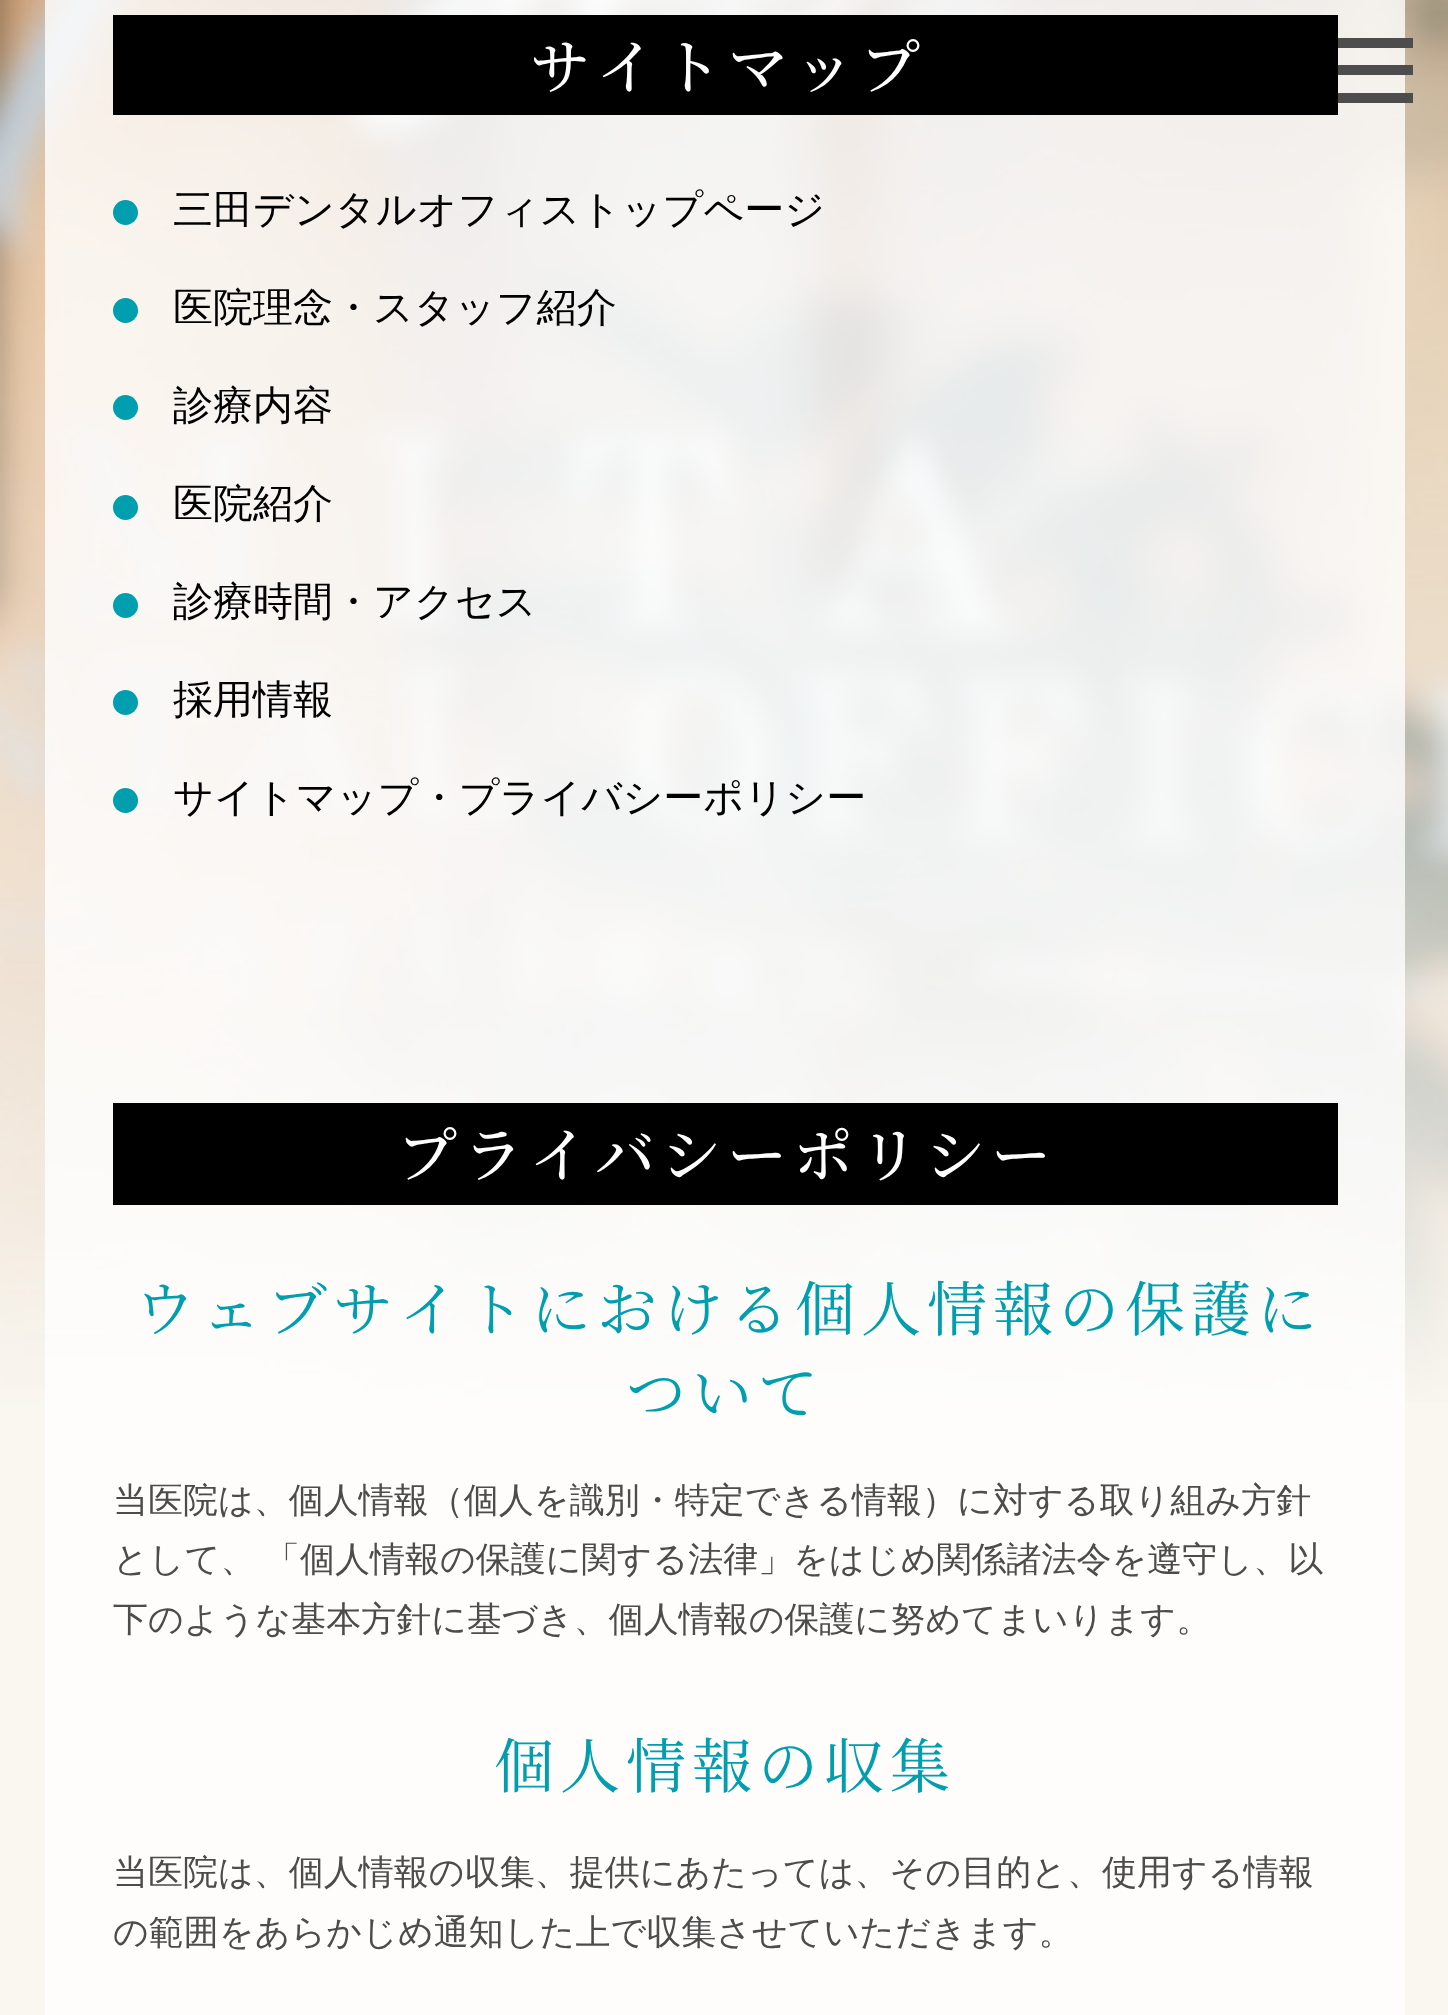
(async () => {
    const canvas = document.querySelector("canvas");
    canvas.width = 1448;
    canvas.height = 2015;
    const context = canvas.getContext("2d");
    context.miterLimit = 4;
    context.fontKerning = "normal";
    function write(s, x, y, font, color) {
        context.font = font;
        context.fillStyle = color;
        context.fillText(s, x, y);
    }
    function block(x, y, w, h, color) {
        context.fillStyle = color;
        context.fillRect(x, y, w, h);
    }
    async function photo(src, x, y, w, h) {
        const img = new Image();
        img.src = src;
        await img.decode();
        context.drawImage(img, x, y, w, h);
    }

    block(0, 0, 1448, 2015, "rgb(250, 247, 241)");
    block(45, 1402, 1360, 613, "rgb(254, 253, 252)");
    await photo("media/1.png", 0, 0, 1448, 1402);
    block(113, 15, 1225, 100, "rgb(0, 0, 0)");
    context.letterSpacing = "6px";
    write("サイトマップ", 530, 89, "500 60px Noto Serif JP", "rgb(255, 255, 255)");
    context.fillStyle = "rgb(0, 158, 174)";
    context.beginPath();
    context.arc(125.5, 212.5, 12.5, 0, Math.PI * 2);
    context.fill();
    context.letterSpacing = "0px";
    write("三田デンタルオフィストップページ", 173, 223, "500 40px WenQuanYi Zen Hei", "rgb(0, 0, 0)");
    context.fillStyle = "rgb(0, 158, 174)";
    context.beginPath();
    context.arc(125.5, 310.5, 12.5, 0, Math.PI * 2);
    context.fill();
    write("医院理念・スタッフ紹介", 173, 321, "500 40px WenQuanYi Zen Hei", "rgb(0, 0, 0)");
    context.fillStyle = "rgb(0, 158, 174)";
    context.beginPath();
    context.arc(125.5, 407.5, 12.5, 0, Math.PI * 2);
    context.fill();
    write("診療内容", 173, 419, "500 40px WenQuanYi Zen Hei", "rgb(0, 0, 0)");
    context.fillStyle = "rgb(0, 158, 174)";
    context.beginPath();
    context.arc(125.5, 507.5, 12.5, 0, Math.PI * 2);
    context.fill();
    write("医院紹介", 173, 517, "500 40px WenQuanYi Zen Hei", "rgb(0, 0, 0)");
    context.fillStyle = "rgb(0, 158, 174)";
    context.beginPath();
    context.arc(125.5, 605.5, 12.5, 0, Math.PI * 2);
    context.fill();
    write("診療時間・アクセス", 173, 615, "500 40px WenQuanYi Zen Hei", "rgb(0, 0, 0)");
    context.fillStyle = "rgb(0, 158, 174)";
    context.beginPath();
    context.arc(125.5, 702.5, 12.5, 0, Math.PI * 2);
    context.fill();
    write("採用情報", 173, 713, "500 40px WenQuanYi Zen Hei", "rgb(0, 0, 0)");
    context.fillStyle = "rgb(0, 158, 174)";
    context.beginPath();
    context.arc(125.5, 800.5, 12.5, 0, Math.PI * 2);
    context.fill();
    write("サイトマップ・プライバシーポリシー", 173, 811, "500 40px WenQuanYi Zen Hei", "rgb(0, 0, 0)");
    block(113, 1103, 1225, 102, "rgb(0, 0, 0)");
    context.letterSpacing = "6px";
    write("プライバシーポリシー", 397, 1177, "500 60px Noto Serif JP", "rgb(255, 255, 255)");
    write("ウェブサイトにおける個人情報の保護に", 135, 1331, "60px Noto Serif JP", "rgb(0, 158, 174)");
    write("ついて", 626, 1415, "60px Noto Serif JP", "rgb(0, 158, 174)");
    context.letterSpacing = "0px";
    write("当医院は、個人情報（個人を識別・特定できる情報）に対する取り組み方針", 113, 1512, "500 35px WenQuanYi Zen Hei", "rgb(76, 76, 76)");
    context.wordSpacing = "-1px";
    write("として、 「個人情報の保護に関する法律」をはじめ関係諸法令を遵守し、以", 113, 1571, "500 35px WenQuanYi Zen Hei", "rgb(76, 76, 76)");
    context.wordSpacing = "0px";
    write("下のような基本方針に基づき、個人情報の保護に努めてまいります。", 113, 1631, "500 35px WenQuanYi Zen Hei", "rgb(76, 76, 76)");
    context.letterSpacing = "6px";
    write("個人情報の収集", 494, 1788, "60px Noto Serif JP", "rgb(0, 158, 174)");
    context.letterSpacing = "0px";
    write("当医院は、個人情報の収集、提供にあたっては、その目的と、使用する情報", 113, 1884, "500 35px WenQuanYi Zen Hei", "rgb(76, 76, 76)");
    write("の範囲をあらかじめ通知した上で収集させていただきます。", 113, 1944, "500 35px WenQuanYi Zen Hei", "rgb(76, 76, 76)");
    block(1338, 38, 75, 10, "rgb(77, 77, 77)");
    block(1338, 65, 75, 10, "rgb(77, 77, 77)");
    block(1338, 93, 75, 10, "rgb(77, 77, 77)");
})();
